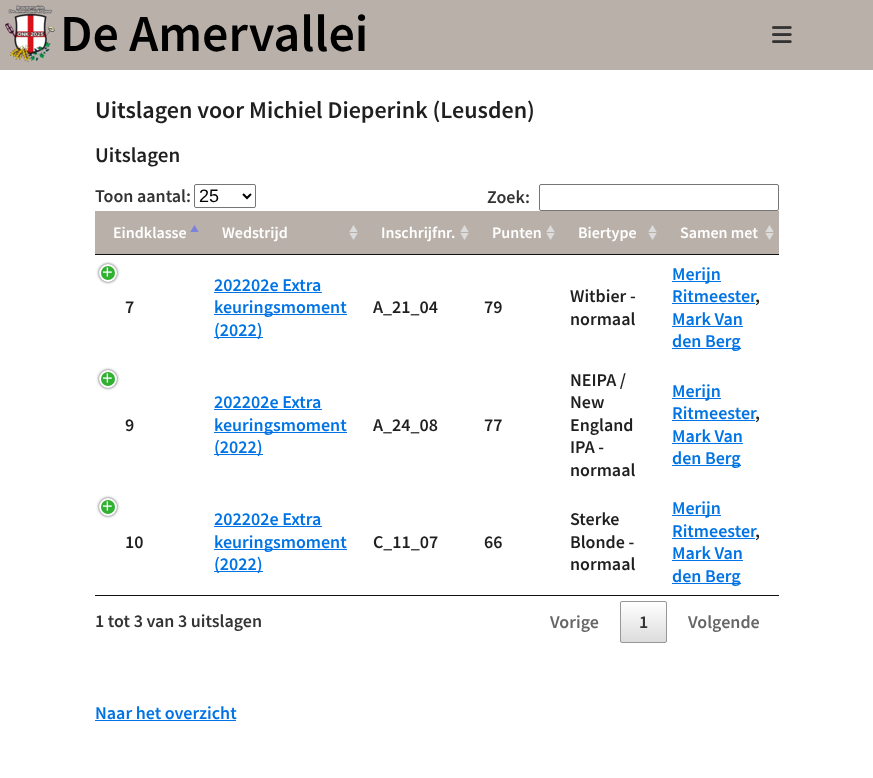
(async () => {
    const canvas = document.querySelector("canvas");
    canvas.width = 873;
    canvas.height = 778;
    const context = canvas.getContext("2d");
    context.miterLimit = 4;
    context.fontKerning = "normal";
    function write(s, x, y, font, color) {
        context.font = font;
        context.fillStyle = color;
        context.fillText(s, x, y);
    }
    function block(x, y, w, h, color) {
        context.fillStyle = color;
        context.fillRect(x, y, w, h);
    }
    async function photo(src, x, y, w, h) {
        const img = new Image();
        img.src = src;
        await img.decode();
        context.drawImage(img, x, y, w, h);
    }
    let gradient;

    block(0, 0, 873, 778, "rgb(255, 255, 255)");
    block(0, 0, 873, 70, "rgb(185, 177, 169)");
    await photo("media/1.png", 5, 5, 50, 57);
    write("De Amervallei", 60, 51, "600 52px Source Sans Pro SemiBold", "rgb(0, 0, 0)");
    await photo("media/2.png", 772, 26, 20, 17);
    write("Uitslagen voor Michiel Dieperink (Leusden)", 95, 118, "600 24px Source Sans Pro SemiBold", "rgb(31, 31, 31)");
    write("Uitslagen", 95, 162, "600 21px Source Sans Pro SemiBold", "rgb(31, 31, 31)");
    write("Toon aantal:", 95, 202, "600 18px Source Sans Pro SemiBold", "rgb(51, 51, 51)");
    context.beginPath();
    context.roundRect(194.5, 184.5, 61, 23, 1.5);
    context.strokeStyle = "rgb(118, 118, 118)";
    context.stroke();
    context.beginPath();
    context.moveTo(243, 194);
    context.lineTo(247, 198);
    context.lineTo(251, 194);
    context.strokeStyle = "rgb(0, 0, 0)";
    context.lineWidth = 2;
    context.stroke();
    write("25", 199, 202, "18px Liberation Sans", "rgb(0, 0, 0)");
    write("Zoek:", 487, 203, "600 18px Source Sans Pro SemiBold", "rgb(51, 51, 51)");
    context.beginPath();
    context.roundRect(539.5, 184.5, 239, 26, 1.5);
    context.strokeStyle = "rgb(118, 118, 118)";
    context.lineWidth = 1;
    context.stroke();
    block(95, 595, 684, 1, "rgb(17, 17, 17)");
    block(95, 211, 684, 43, "rgb(185, 177, 169)");
    await photo("media/3.png", 190, 225, 9, 7);
    block(95, 254, 684, 1, "rgb(17, 17, 17)");
    write("Eindklasse", 113, 238, "600 16px Source Sans Pro SemiBold", "rgb(255, 255, 255)");
    await photo("media/4.png", 349, 225, 9, 15);
    write("Wedstrijd", 222, 238, "600 16px Source Sans Pro SemiBold", "rgb(255, 255, 255)");
    await photo("media/4.png", 460, 225, 9, 15);
    write("Inschrijfnr.", 381, 238, "600 16px Source Sans Pro SemiBold", "rgb(255, 255, 255)");
    await photo("media/4.png", 546, 225, 9, 15);
    write("Punten", 492, 238, "600 16px Source Sans Pro SemiBold", "rgb(255, 255, 255)");
    await photo("media/4.png", 648, 225, 9, 15);
    write("Biertype", 578, 238, "600 16px Source Sans Pro SemiBold", "rgb(255, 255, 255)");
    await photo("media/4.png", 765, 225, 9, 15);
    write("Samen met", 680, 238, "600 16px Source Sans Pro SemiBold", "rgb(255, 255, 255)");
    context.fillStyle = "rgb(68, 68, 68)";
    context.filter = "blur(1.5px)";
    context.beginPath();
    context.roundRect(99, 264, 18, 18, 9);
    context.fill();
    context.filter = "none";
    context.fillStyle = "rgb(49, 177, 49)";
    context.beginPath();
    context.arc(108, 273, 8, 0, Math.PI * 2);
    context.fill();
    context.strokeStyle = "rgb(255, 255, 255)";
    context.lineWidth = 2;
    context.stroke();
    write("+", 102, 278, "18px Liberation Mono", "rgb(255, 255, 255)");
    write("7", 125, 313, "600 18px Source Sans Pro SemiBold", "rgb(31, 31, 31)");
    write("202202e Extra", 214, 291, "600 18px Source Sans Pro SemiBold", "rgb(0, 115, 229)");
    block(214, 292, 108, 1, "rgb(0, 115, 229)");
    block(214, 314, 133, 1, "rgb(0, 115, 229)");
    write("keuringsmoment", 214, 313, "600 18px Source Sans Pro SemiBold", "rgb(0, 115, 229)");
    block(214, 337, 49, 1, "rgb(0, 115, 229)");
    write("(2022)", 214, 336, "600 18px Source Sans Pro SemiBold", "rgb(0, 115, 229)");
    write("A_21_04", 373, 313, "600 18px Source Sans Pro SemiBold", "rgb(31, 31, 31)");
    write("79", 484, 313, "600 18px Source Sans Pro SemiBold", "rgb(31, 31, 31)");
    write("Witbier -", 570, 302, "600 18px Source Sans Pro SemiBold", "rgb(31, 31, 31)");
    write("normaal", 570, 325, "600 18px Source Sans Pro SemiBold", "rgb(31, 31, 31)");
    block(672, 281, 49, 1, "rgb(0, 115, 229)");
    write("Merijn", 672, 280, "600 18px Source Sans Pro SemiBold", "rgb(0, 115, 229)");
    write("Ritmeester", 672, 302, "600 18px Source Sans Pro SemiBold", "rgb(0, 115, 229)");
    block(672, 303, 83, 1, "rgb(0, 115, 229)");
    write(",", 755, 302, "600 18px Source Sans Pro SemiBold", "rgb(31, 31, 31)");
    write("Mark Van", 672, 325, "600 18px Source Sans Pro SemiBold", "rgb(0, 115, 229)");
    block(672, 326, 71, 1, "rgb(0, 115, 229)");
    block(672, 348, 69, 1, "rgb(0, 115, 229)");
    write("den Berg", 672, 347, "600 18px Source Sans Pro SemiBold", "rgb(0, 115, 229)");
    context.fillStyle = "rgb(68, 68, 68)";
    context.filter = "blur(1.5px)";
    context.beginPath();
    context.roundRect(99, 370, 18, 18, 9);
    context.fill();
    context.filter = "none";
    context.fillStyle = "rgb(49, 177, 49)";
    context.beginPath();
    context.arc(108, 379, 8, 0, Math.PI * 2);
    context.fill();
    context.stroke();
    write("+", 102, 384, "18px Liberation Mono", "rgb(255, 255, 255)");
    write("9", 125, 431, "600 18px Source Sans Pro SemiBold", "rgb(31, 31, 31)");
    write("202202e Extra", 214, 408, "600 18px Source Sans Pro SemiBold", "rgb(0, 115, 229)");
    block(214, 409, 108, 1, "rgb(0, 115, 229)");
    block(214, 432, 133, 1, "rgb(0, 115, 229)");
    write("keuringsmoment", 214, 431, "600 18px Source Sans Pro SemiBold", "rgb(0, 115, 229)");
    block(214, 454, 49, 1, "rgb(0, 115, 229)");
    write("(2022)", 214, 453, "600 18px Source Sans Pro SemiBold", "rgb(0, 115, 229)");
    write("A_24_08", 373, 431, "600 18px Source Sans Pro SemiBold", "rgb(31, 31, 31)");
    write("77", 484, 431, "600 18px Source Sans Pro SemiBold", "rgb(31, 31, 31)");
    write("NEIPA /", 570, 386, "600 18px Source Sans Pro SemiBold", "rgb(31, 31, 31)");
    write("New", 570, 408, "600 18px Source Sans Pro SemiBold", "rgb(31, 31, 31)");
    write("England", 570, 431, "600 18px Source Sans Pro SemiBold", "rgb(31, 31, 31)");
    write("IPA -", 570, 453, "600 18px Source Sans Pro SemiBold", "rgb(31, 31, 31)");
    write("normaal", 570, 476, "600 18px Source Sans Pro SemiBold", "rgb(31, 31, 31)");
    block(672, 398, 49, 1, "rgb(0, 115, 229)");
    write("Merijn", 672, 397, "600 18px Source Sans Pro SemiBold", "rgb(0, 115, 229)");
    write("Ritmeester", 672, 419, "600 18px Source Sans Pro SemiBold", "rgb(0, 115, 229)");
    block(672, 420, 83, 1, "rgb(0, 115, 229)");
    write(",", 755, 419, "600 18px Source Sans Pro SemiBold", "rgb(31, 31, 31)");
    write("Mark Van", 672, 442, "600 18px Source Sans Pro SemiBold", "rgb(0, 115, 229)");
    block(672, 443, 71, 1, "rgb(0, 115, 229)");
    block(672, 465, 69, 1, "rgb(0, 115, 229)");
    write("den Berg", 672, 464, "600 18px Source Sans Pro SemiBold", "rgb(0, 115, 229)");
    context.fillStyle = "rgb(68, 68, 68)";
    context.filter = "blur(1.5px)";
    context.beginPath();
    context.roundRect(99, 498, 18, 18, 9);
    context.fill();
    context.filter = "none";
    context.fillStyle = "rgb(49, 177, 49)";
    context.beginPath();
    context.arc(108, 507, 8, 0, Math.PI * 2);
    context.fill();
    context.stroke();
    write("+", 102, 512, "18px Liberation Mono", "rgb(255, 255, 255)");
    write("10", 125, 548, "600 18px Source Sans Pro SemiBold", "rgb(31, 31, 31)");
    write("202202e Extra", 214, 525, "600 18px Source Sans Pro SemiBold", "rgb(0, 115, 229)");
    block(214, 526, 108, 1, "rgb(0, 115, 229)");
    block(214, 549, 133, 1, "rgb(0, 115, 229)");
    write("keuringsmoment", 214, 548, "600 18px Source Sans Pro SemiBold", "rgb(0, 115, 229)");
    block(214, 571, 49, 1, "rgb(0, 115, 229)");
    write("(2022)", 214, 570, "600 18px Source Sans Pro SemiBold", "rgb(0, 115, 229)");
    write("C_11_07", 373, 548, "600 18px Source Sans Pro SemiBold", "rgb(31, 31, 31)");
    write("66", 484, 548, "600 18px Source Sans Pro SemiBold", "rgb(31, 31, 31)");
    write("Sterke", 570, 525, "600 18px Source Sans Pro SemiBold", "rgb(31, 31, 31)");
    write("Blonde -", 570, 548, "600 18px Source Sans Pro SemiBold", "rgb(31, 31, 31)");
    write("normaal", 570, 570, "600 18px Source Sans Pro SemiBold", "rgb(31, 31, 31)");
    block(672, 515, 49, 1, "rgb(0, 115, 229)");
    write("Merijn", 672, 514, "600 18px Source Sans Pro SemiBold", "rgb(0, 115, 229)");
    write("Ritmeester", 672, 537, "600 18px Source Sans Pro SemiBold", "rgb(0, 115, 229)");
    block(672, 538, 83, 1, "rgb(0, 115, 229)");
    write(",", 755, 537, "600 18px Source Sans Pro SemiBold", "rgb(31, 31, 31)");
    write("Mark Van", 672, 559, "600 18px Source Sans Pro SemiBold", "rgb(0, 115, 229)");
    block(672, 560, 71, 1, "rgb(0, 115, 229)");
    block(672, 583, 69, 1, "rgb(0, 115, 229)");
    write("den Berg", 672, 582, "600 18px Source Sans Pro SemiBold", "rgb(0, 115, 229)");
    write("1 tot 3 van 3 uitslagen", 95, 627, "600 18px Source Sans Pro SemiBold", "rgb(51, 51, 51)");
    write("Vorige", 550, 628, "600 18px Source Sans Pro SemiBold", "rgb(102, 102, 102)");
    context.save();
    context.beginPath();
    context.roundRect(620, 601, 47, 42, 2);
    context.clip();
    gradient = context.createLinearGradient(644, 602, 644, 642);
    gradient.addColorStop(0, "rgb(255, 255, 255)");
    gradient.addColorStop(1, "rgb(220, 220, 220)");
    context.fillStyle = gradient;
    context.fillRect(620, 602, 47, 40);
    context.restore();
    context.beginPath();
    context.roundRect(620.5, 601.5, 46, 41, 1.5);
    context.strokeStyle = "rgb(151, 151, 151)";
    context.lineWidth = 1;
    context.stroke();
    write("1", 639, 628, "600 18px Source Sans Pro SemiBold", "rgb(51, 51, 51)");
    write("Volgende", 688, 628, "600 18px Source Sans Pro SemiBold", "rgb(102, 102, 102)");
    write("Naar het overzicht", 95, 719, "600 18px Source Sans Pro SemiBold", "rgb(0, 115, 229)");
    block(95, 720, 141, 1, "rgb(0, 115, 229)");
})();
